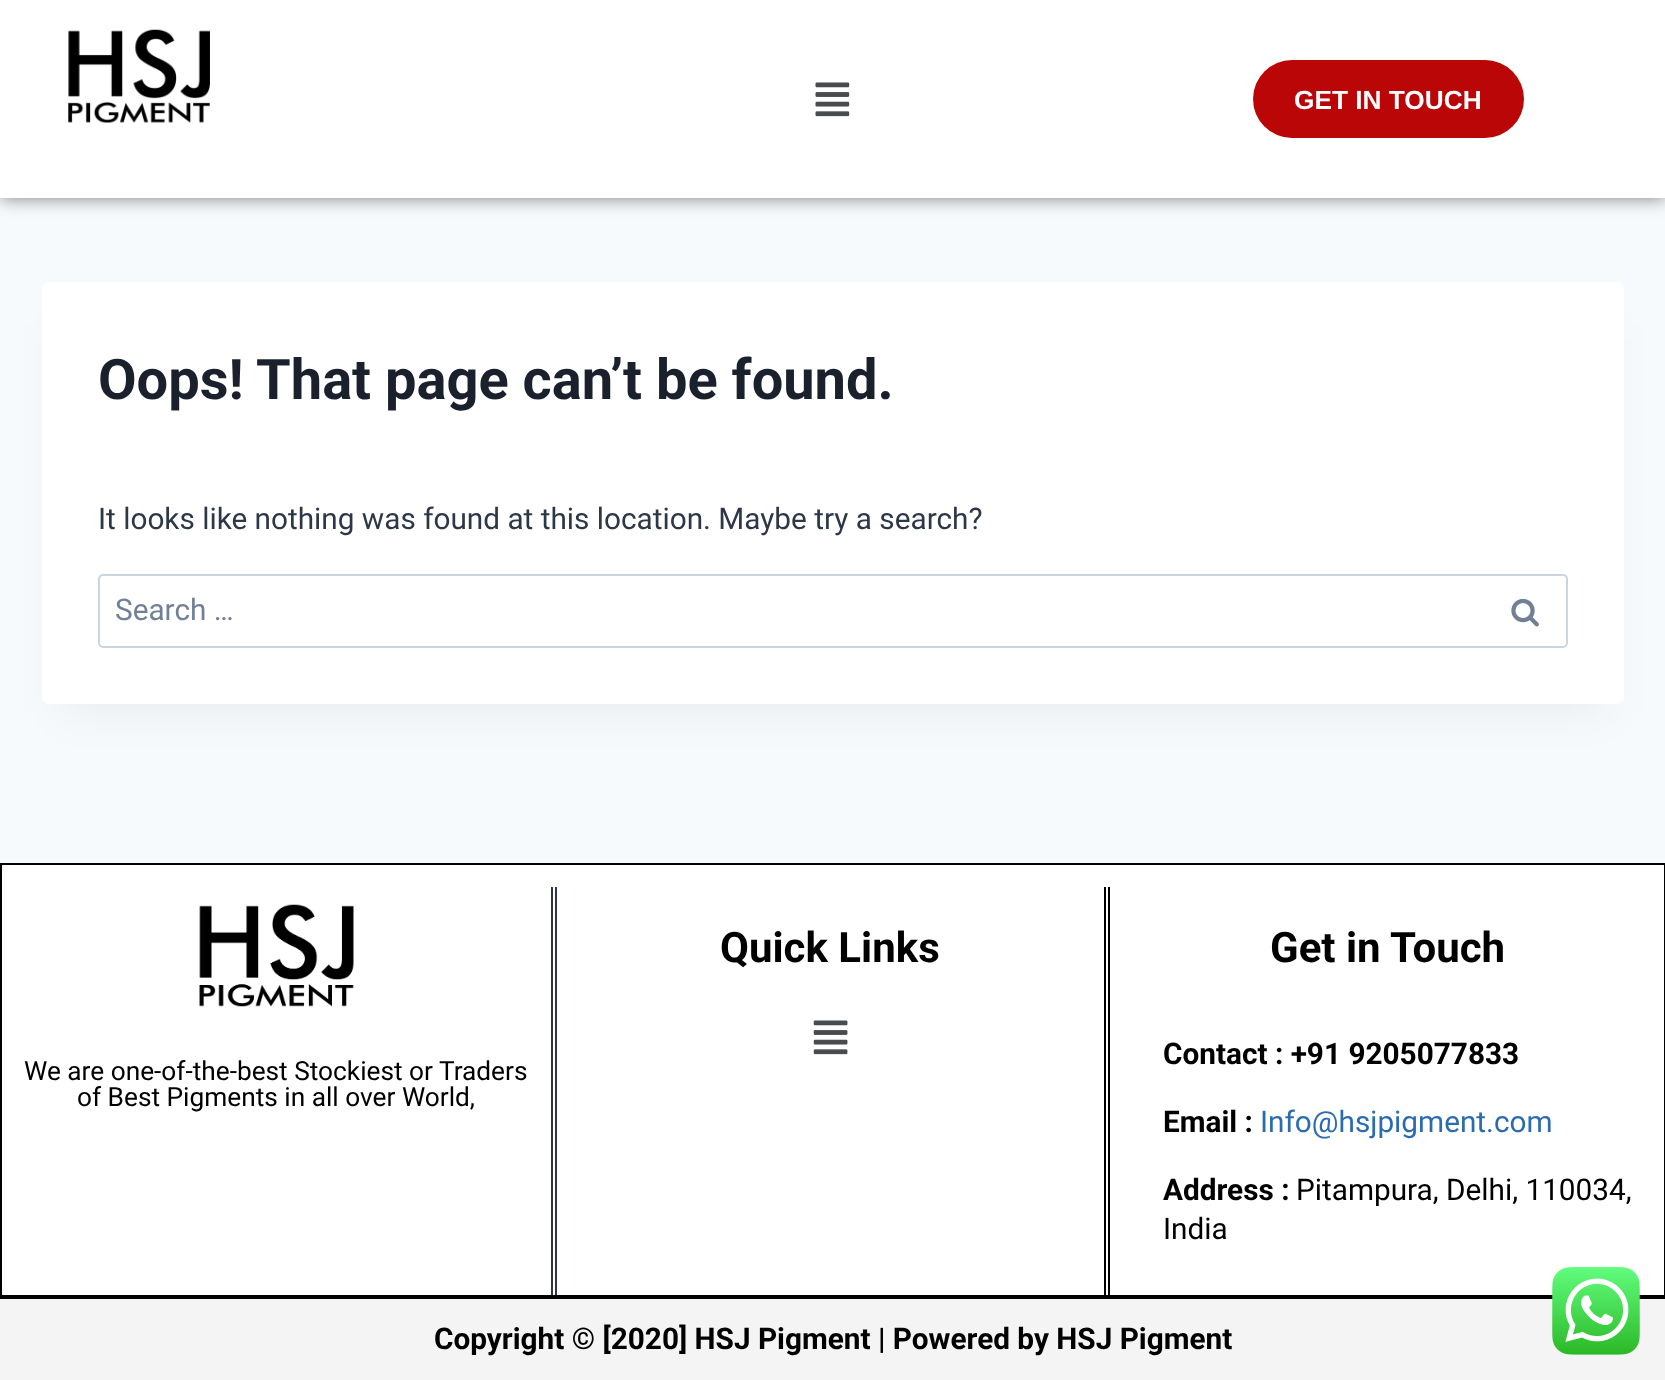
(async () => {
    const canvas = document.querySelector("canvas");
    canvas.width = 1665;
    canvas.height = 1380;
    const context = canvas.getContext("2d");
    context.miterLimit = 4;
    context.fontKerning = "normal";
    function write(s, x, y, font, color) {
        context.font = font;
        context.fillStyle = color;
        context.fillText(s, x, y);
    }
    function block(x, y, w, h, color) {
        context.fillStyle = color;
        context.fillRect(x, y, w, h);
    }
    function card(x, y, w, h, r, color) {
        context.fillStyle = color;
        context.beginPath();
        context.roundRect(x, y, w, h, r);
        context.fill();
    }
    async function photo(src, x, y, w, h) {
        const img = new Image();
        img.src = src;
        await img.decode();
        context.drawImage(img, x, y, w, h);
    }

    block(0, 0, 1665, 1380, "rgb(247, 250, 252)");
    context.fillStyle = "rgba(0, 0, 0, 0.5)";
    context.filter = "blur(9px)";
    context.beginPath();
    context.rect(0, 0, 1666, 198);
    context.fill();
    context.filter = "none";
    block(0, 0, 1665, 198, "rgb(255, 255, 255)");
    await photo("media/1.png", 68, 29, 142, 94);
    await photo("media/2.png", 815, 82, 35, 35);
    card(1253, 60, 271, 78, 39, "rgb(186, 6, 6)");
    write("GET IN TOUCH", 1294, 109, "bold 26.25px Liberation Sans", "rgb(255, 255, 255)");
    context.fillStyle = "rgba(0, 0, 0, 0.05)";
    context.filter = "blur(22px)";
    context.beginPath();
    context.rect(60, 326, 1547, 386);
    context.fill();
    context.filter = "none";
    card(42, 282, 1582, 422, 7, "rgb(255, 255, 255)");
    write("Oops! That page can’t be found.", 98, 399, "bold 56px Roboto", "rgb(26, 32, 44)");
    write("It looks like nothing was found at this location. Maybe try a search?", 98, 529, "29.75px Roboto", "rgb(45, 55, 72)");
    context.beginPath();
    context.roundRect(99, 575, 1468, 72, 4);
    context.strokeStyle = "rgb(203, 213, 224)";
    context.lineWidth = 2;
    context.stroke();
    write("Search …", 115, 620, "29.75px Roboto", "rgb(113, 128, 150)");
    await photo("media/3.png", 1511, 598, 28, 29);
    context.fillStyle = "rgb(255, 255, 255)";
    context.beginPath();
    context.rect(1, 864, 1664, 432);
    context.fill();
    context.strokeStyle = "rgb(0, 0, 0)";
    context.stroke();
    block(551, 887, 2, 408, "rgb(45, 55, 72)");
    block(555, 887, 2, 408, "rgb(45, 55, 72)");
    await photo("media/4.png", 199, 904, 155, 103);
    write("We are one-of-the-best Stockiest or Traders", 24, 1080, "26.25px Roboto", "rgb(0, 0, 0)");
    write("of Best Pigments in all over World,", 77, 1106, "26.25px Roboto", "rgb(0, 0, 0)");
    block(1104, 887, 2, 408, "rgb(0, 0, 0)");
    block(1108, 887, 2, 408, "rgb(0, 0, 0)");
    write("Quick Links", 720, 962, "bold 42px Roboto", "rgb(0, 0, 0)");
    await photo("media/5.png", 813, 1020, 35, 35);
    write("Get in Touch", 1270, 962, "bold 42px Roboto", "rgb(0, 0, 0)");
    write("Contact : +91 9205077833", 1163, 1064, "bold 29.75px Roboto", "rgb(0, 0, 0)");
    write("Email :", 1163, 1132, "bold 29.75px Roboto", "rgb(0, 0, 0)");
    write("Info@hsjpigment.com", 1260, 1132, "29.75px Roboto", "rgb(43, 108, 176)");
    write("Address :", 1163, 1200, "bold 29.75px Roboto", "rgb(0, 0, 0)");
    write("Pitampura, Delhi, 110034,", 1296, 1200, "29.75px Roboto", "rgb(0, 0, 0)");
    write("India", 1163, 1239, "29.75px Roboto", "rgb(0, 0, 0)");
    block(0, 1299, 1665, 81, "rgb(244, 244, 244)");
    block(0, 1297, 1665, 2, "rgb(0, 0, 0)");
    write("Copyright © [2020] HSJ Pigment | Powered by HSJ Pigment", 434, 1349, "bold 29.75px Roboto", "rgb(0, 0, 0)");
    await photo("media/6.png", 1552, 1267, 88, 88);
})();
